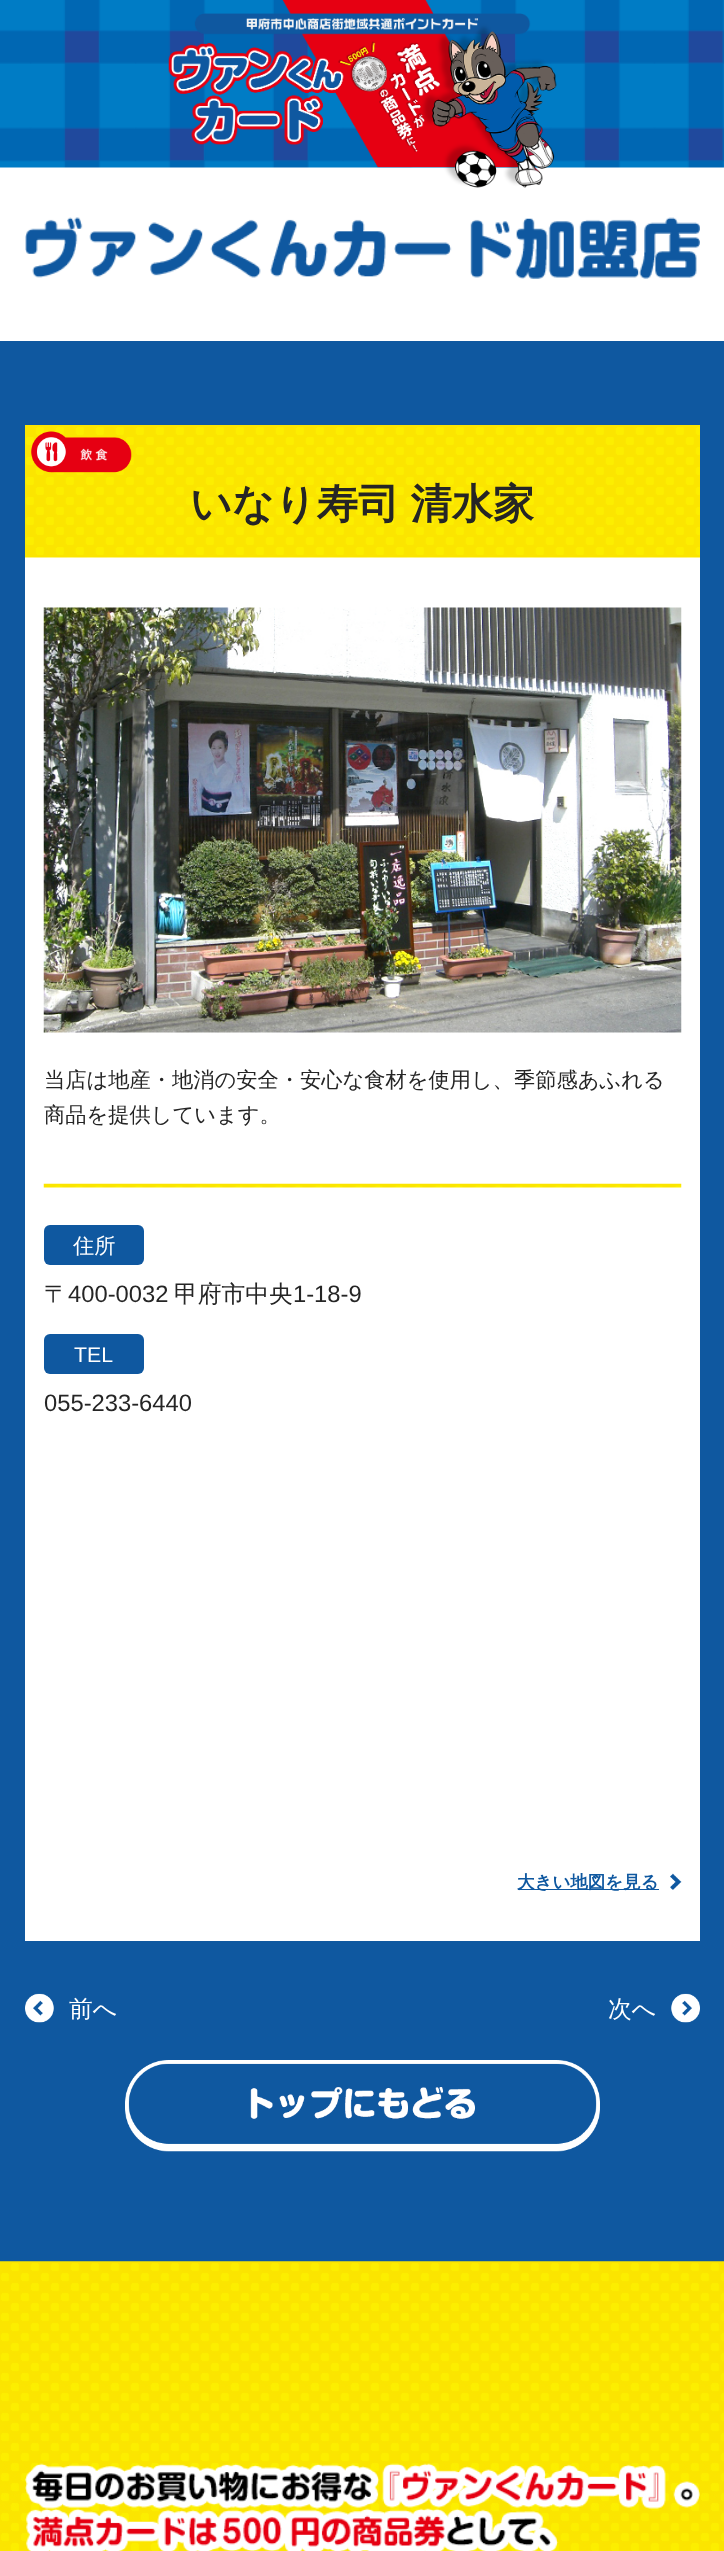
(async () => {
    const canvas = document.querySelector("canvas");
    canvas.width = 724;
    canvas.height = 2551;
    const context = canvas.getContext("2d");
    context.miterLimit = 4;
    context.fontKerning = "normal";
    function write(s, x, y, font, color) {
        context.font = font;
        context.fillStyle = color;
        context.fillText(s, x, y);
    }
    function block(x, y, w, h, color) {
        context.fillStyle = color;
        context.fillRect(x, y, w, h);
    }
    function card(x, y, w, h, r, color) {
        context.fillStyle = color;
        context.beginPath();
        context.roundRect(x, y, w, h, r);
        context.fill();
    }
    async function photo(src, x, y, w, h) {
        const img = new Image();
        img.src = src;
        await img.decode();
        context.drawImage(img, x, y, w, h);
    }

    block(0, 0, 724, 2551, "rgb(255, 255, 255)");
    await photo("media/1.png", 0, 0, 724, 168);
    await photo("media/2.png", 168, 0, 389, 188);
    await photo("media/3.png", 25, 217, 675, 62);
    block(0, 341, 724, 1921, "rgb(15, 88, 160)");
    block(25, 557, 675, 1384, "rgb(255, 255, 255)");
    await photo("media/4.png", 25, 425, 675, 133);
    await photo("media/5.png", 31, 431, 101, 42);
    context.wordSpacing = "-1px";
    write("いなり寿司 清水家", 190, 518, "bold 41.25px WenQuanYi Zen Hei", "rgb(37, 37, 37)");
    await photo("media/6.png", 43, 607, 639, 426);
    context.wordSpacing = "0px";
    write("当店は地産・地消の安全・安心な食材を使用し、季節感あふれる", 44, 1087, "500 21.25px WenQuanYi Zen Hei", "rgb(37, 37, 37)");
    write("商品を提供しています。", 44, 1122, "500 21.25px WenQuanYi Zen Hei", "rgb(37, 37, 37)");
    await photo("media/7.png", 43, 1183, 639, 5);
    card(44, 1225, 100, 40, 6, "rgb(15, 88, 160)");
    write("住所", 73, 1253, "500 21.25px WenQuanYi Zen Hei", "rgb(255, 255, 255)");
    write("〒", 44, 1302, "500 23.75px WenQuanYi Zen Hei", "rgb(37, 37, 37)");
    write("400-0032", 68, 1302, "23.75px Liberation Sans", "rgb(37, 37, 37)");
    write("甲府市中央", 174, 1302, "500 23.75px WenQuanYi Zen Hei", "rgb(37, 37, 37)");
    write("1-18-9", 293, 1302, "23.75px Liberation Sans", "rgb(37, 37, 37)");
    card(44, 1334, 100, 40, 6, "rgb(15, 88, 160)");
    write("TEL", 74, 1362, "21.25px Liberation Sans", "rgb(255, 255, 255)");
    write("055-233-6440", 44, 1411, "23.75px Liberation Sans", "rgb(37, 37, 37)");
    block(518, 1889, 141, 1, "rgb(15, 88, 160)");
    write("大きい地図を見る", 517, 1888, "bold 17.5px WenQuanYi Zen Hei", "rgb(15, 88, 160)");
    await photo("media/8.png", 670, 1873, 12, 17);
    await photo("media/9.png", 25, 1993, 29, 30);
    write("前へ", 69, 2017, "500 23.75px WenQuanYi Zen Hei", "rgb(255, 255, 255)");
    await photo("media/10.png", 671, 1993, 29, 30);
    write("次へ", 608, 2017, "500 23.75px WenQuanYi Zen Hei", "rgb(255, 255, 255)");
    await photo("media/11.png", 125, 2060, 475, 92);
    await photo("media/12.png", 0, 2261, 724, 290);
    await photo("media/13.png", 25, 2463, 675, 88);
})();
